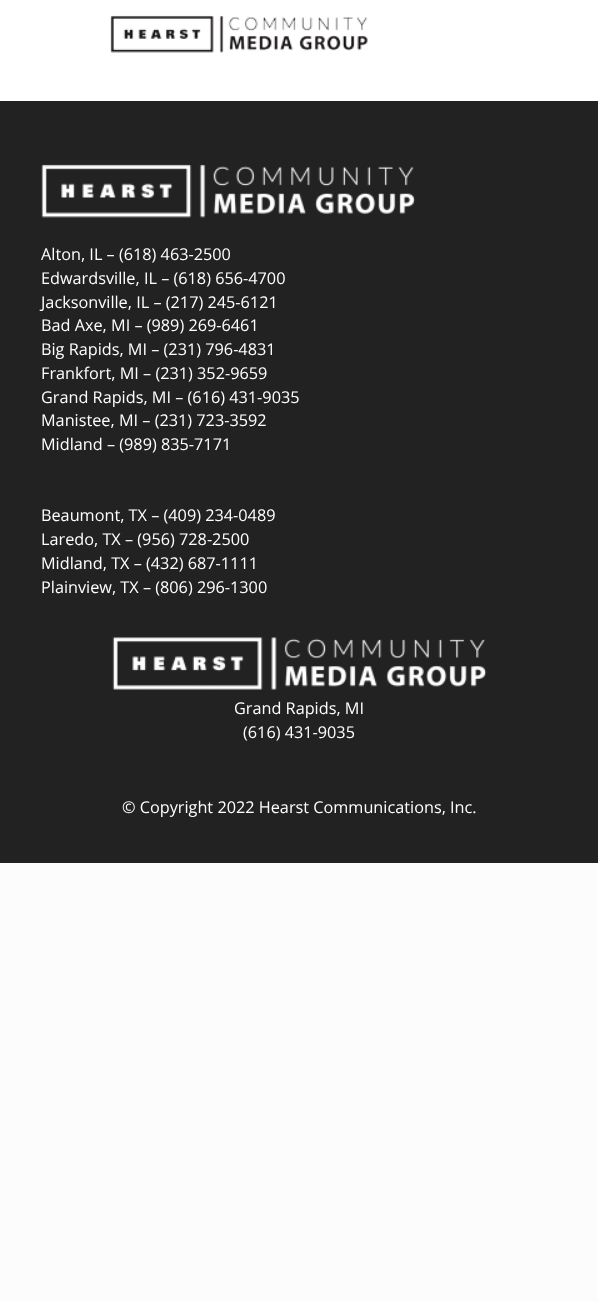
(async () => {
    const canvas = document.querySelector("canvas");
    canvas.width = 598;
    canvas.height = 1302;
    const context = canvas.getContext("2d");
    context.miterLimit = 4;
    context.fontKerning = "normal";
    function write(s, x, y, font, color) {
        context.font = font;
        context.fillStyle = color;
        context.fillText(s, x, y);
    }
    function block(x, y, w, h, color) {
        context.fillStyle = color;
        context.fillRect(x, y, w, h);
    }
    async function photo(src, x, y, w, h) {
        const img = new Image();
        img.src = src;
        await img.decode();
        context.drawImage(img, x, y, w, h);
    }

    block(0, 0, 598, 1302, "rgb(252, 252, 252)");
    block(0, 0, 598, 101, "rgb(255, 255, 255)");
    await photo("media/1.png", 110, 15, 258, 38);
    block(0, 101, 598, 762, "rgb(34, 34, 34)");
    await photo("media/2.png", 41, 164, 374, 54);
    write("Alton, IL – (618) 463-2500", 41, 260, "16.25px Open Sans", "rgb(255, 255, 255)");
    write("Edwardsville, IL – (618) 656-4700", 41, 284, "16.25px Open Sans", "rgb(255, 255, 255)");
    write("Jacksonville, IL – (217) 245-6121", 41, 308, "16.25px Open Sans", "rgb(255, 255, 255)");
    write("Bad Axe, MI – (989) 269-6461", 41, 331, "16.25px Open Sans", "rgb(255, 255, 255)");
    write("Big Rapids, MI – (231) 796-4831", 41, 355, "16.25px Open Sans", "rgb(255, 255, 255)");
    write("Frankfort, MI – (231) 352-9659", 41, 379, "16.25px Open Sans", "rgb(255, 255, 255)");
    write("Grand Rapids, MI – (616) 431-9035", 41, 403, "16.25px Open Sans", "rgb(255, 255, 255)");
    write("Manistee, MI – (231) 723-3592", 41, 426, "16.25px Open Sans", "rgb(255, 255, 255)");
    write("Midland – (989) 835-7171", 41, 450, "16.25px Open Sans", "rgb(255, 255, 255)");
    write("Beaumont, TX – (409) 234-0489", 41, 521, "16.25px Open Sans", "rgb(255, 255, 255)");
    write("Laredo, TX – (956) 728-2500", 41, 545, "16.25px Open Sans", "rgb(255, 255, 255)");
    write("Midland, TX – (432) 687-1111", 41, 569, "16.25px Open Sans", "rgb(255, 255, 255)");
    write("Plainview, TX – (806) 296-1300", 41, 593, "16.25px Open Sans", "rgb(255, 255, 255)");
    await photo("media/3.png", 112, 637, 375, 53);
    write("Grand Rapids, MI", 234, 714, "16.25px Open Sans", "rgb(255, 255, 255)");
    write("(616) 431-9035", 243, 738, "16.25px Open Sans", "rgb(255, 255, 255)");
    write("© Copyright 2022 Hearst Communications, Inc.", 122, 813, "16.25px Open Sans", "rgb(255, 255, 255)");
})();
